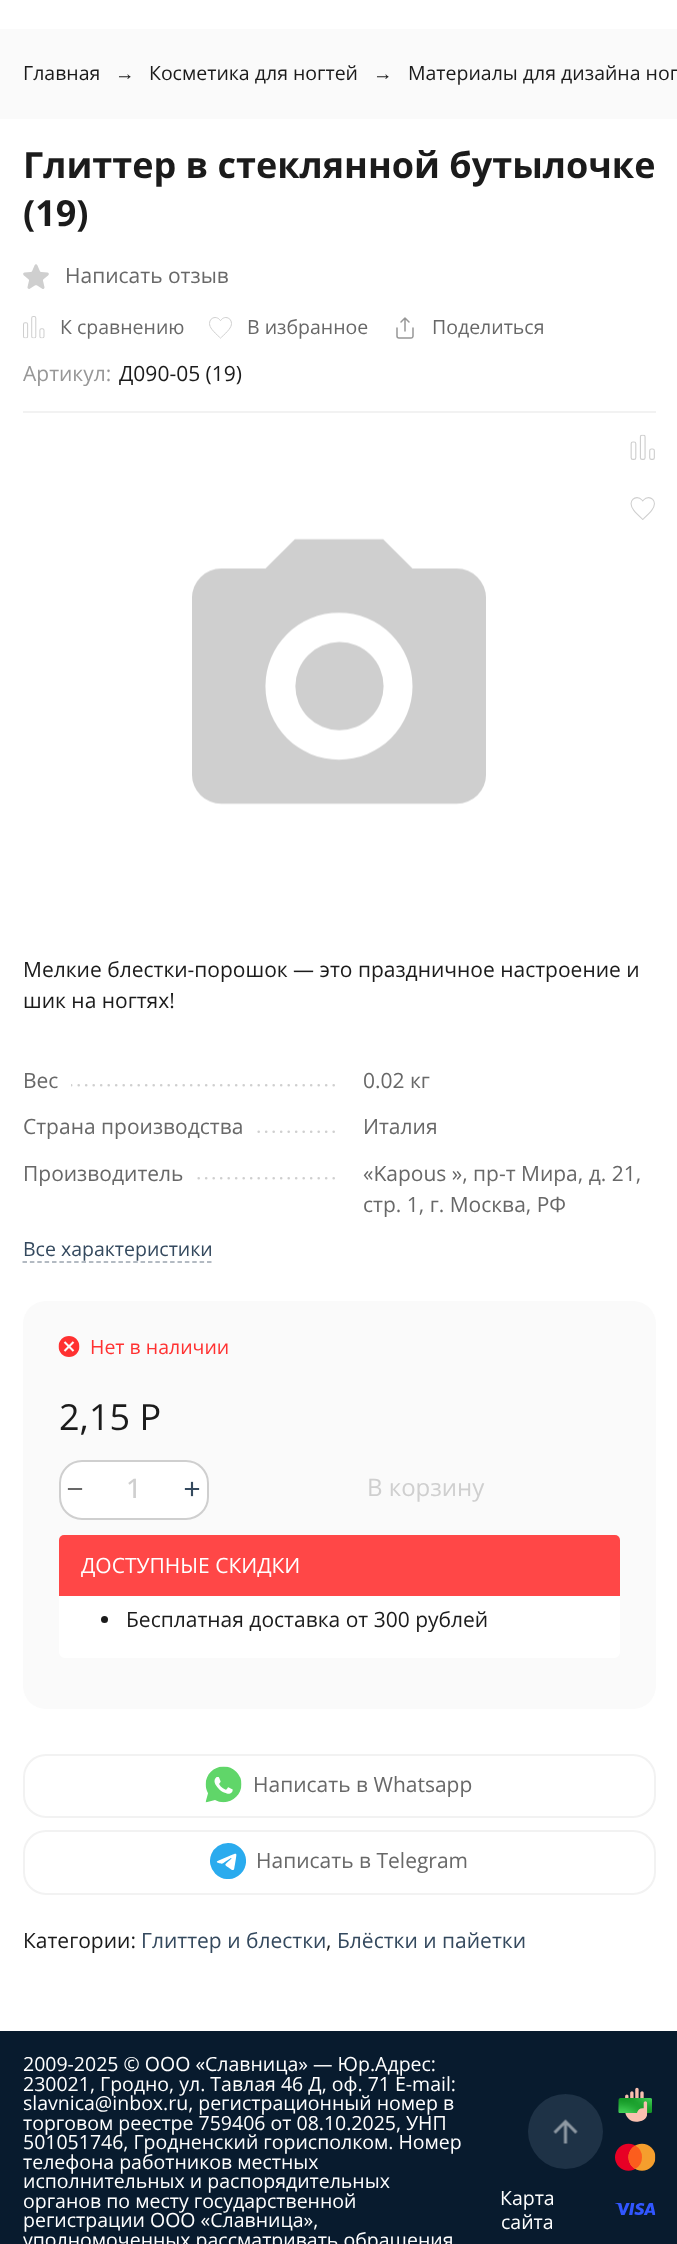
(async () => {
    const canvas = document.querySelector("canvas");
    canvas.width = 677;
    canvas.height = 2244;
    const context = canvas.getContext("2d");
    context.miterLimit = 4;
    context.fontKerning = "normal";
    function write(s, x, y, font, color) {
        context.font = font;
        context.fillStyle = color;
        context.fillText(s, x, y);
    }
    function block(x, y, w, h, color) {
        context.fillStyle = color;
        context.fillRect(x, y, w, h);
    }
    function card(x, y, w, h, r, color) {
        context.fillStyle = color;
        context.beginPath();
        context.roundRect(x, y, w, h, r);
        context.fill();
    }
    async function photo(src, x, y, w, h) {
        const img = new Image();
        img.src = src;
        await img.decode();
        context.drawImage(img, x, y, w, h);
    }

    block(0, 0, 677, 2244, "rgb(255, 255, 255)");
    block(0, 29, 677, 90, "rgb(250, 250, 250)");
    write("Главная", 23, 80, "19.5px Open Sans", "rgb(27, 27, 27)");
    write("→", 115, 80, "19.5px Liberation Sans", "rgb(27, 27, 27)");
    write("Косметика для ногтей", 149, 80, "19.5px Open Sans", "rgb(27, 27, 27)");
    write("→", 373, 80, "19.5px Liberation Sans", "rgb(27, 27, 27)");
    write("Материалы для дизайна ног", 408, 80, "19.5px Open Sans", "rgb(27, 27, 27)");
    block(23, 411, 633, 2, "rgb(242, 242, 242)");
    write("Глиттер в стеклянной бутылочке", 23, 178, "bold 36px Open Sans", "rgb(27, 27, 27)");
    write("(19)", 23, 226, "bold 36px Open Sans", "rgb(27, 27, 27)");
    await photo("media/1.png", 23, 264, 26, 25);
    write("Написать отзыв", 65, 283, "21px Open Sans", "rgb(104, 104, 104)");
    await photo("media/2.png", 23, 316, 22, 23);
    write("К сравнению", 60, 334, "19.5px Open Sans", "rgb(104, 104, 104)");
    await photo("media/3.png", 209, 317, 23, 22);
    write("В избранное", 247, 334, "19.5px Open Sans", "rgb(104, 104, 104)");
    await photo("media/4.png", 396, 317, 18, 22);
    write("Поделиться", 432, 334, "19.5px Open Sans", "rgb(104, 104, 104)");
    write("Артикул:", 23, 381, "21px Open Sans", "rgb(151, 151, 151)");
    write("Д090-05 (19)", 119, 381, "21px Open Sans", "rgb(27, 27, 27)");
    await photo("media/5.png", 630, 434, 25, 26);
    await photo("media/6.png", 630, 497, 25, 23);
    await photo("media/7.png", 192, 538, 294, 267);
    write("Мелкие блестки-порошок — это праздничное настроение и", 23, 977, "21px Open Sans", "rgb(27, 27, 27)");
    write("шик на ногтях!", 23, 1008, "21px Open Sans", "rgb(27, 27, 27)");
    context.beginPath();
    context.moveTo(26.2, 1085.2);
    context.lineTo(334, 1085.2);
    context.strokeStyle = "rgb(207, 207, 207)";
    context.lineWidth = 2.6;
    context.lineCap = "round";
    context.setLineDash([0, 7.5]);
    context.stroke();
    block(25, 1084, 46, 3, "rgb(255, 255, 255)");
    write("Вес", 23, 1088, "21px Open Sans", "rgb(104, 104, 104)");
    write("0.02 кг", 363, 1088, "21px Open Sans", "rgb(104, 104, 104)");
    context.beginPath();
    context.moveTo(26.2, 1131.8);
    context.lineTo(334, 1131.8);
    context.stroke();
    block(25, 1130, 228, 3, "rgb(255, 255, 255)");
    write("Страна производства", 23, 1134, "21px Open Sans", "rgb(104, 104, 104)");
    write("Италия", 363, 1134, "21px Open Sans", "rgb(104, 104, 104)");
    context.beginPath();
    context.moveTo(26.2, 1178.2);
    context.lineTo(334, 1178.2);
    context.stroke();
    block(25, 1177, 168, 3, "rgb(255, 255, 255)");
    write("Производитель", 23, 1181, "21px Open Sans", "rgb(104, 104, 104)");
    write("«Kapous », пр-т Мира, д. 21,", 363, 1181, "21px Open Sans", "rgb(104, 104, 104)");
    write("стр. 1, г. Москва, РФ", 363, 1212, "21px Open Sans", "rgb(104, 104, 104)");
    write("Все характеристики", 23, 1256, "19.5px Open Sans", "rgb(52, 73, 94)");
    context.beginPath();
    context.moveTo(22.5, 1262);
    context.lineTo(211.5, 1262);
    context.strokeStyle = "rgb(154, 164, 175)";
    context.lineWidth = 1.5;
    context.lineCap = "butt";
    context.setLineDash([4.5, 2.88]);
    context.stroke();
    card(23, 1301, 633, 408, 23, "rgb(250, 250, 250)");
    await photo("media/8.png", 58, 1336, 22, 21);
    write("Нет в наличии", 90, 1354, "19.5px Open Sans", "rgb(255, 49, 49)");
    write("2,15 Р", 59, 1430, "36px Open Sans", "rgb(27, 27, 27)");
    context.fillStyle = "rgb(255, 255, 255)";
    context.beginPath();
    context.roundRect(60, 1461, 148, 58, 22);
    context.fill();
    context.strokeStyle = "rgb(207, 207, 207)";
    context.lineWidth = 2;
    context.setLineDash([]);
    context.stroke();
    await photo("media/9.png", 67, 1488, 16, 2);
    write("1", 126, 1498, "500 27px Open Sans", "rgb(207, 207, 207)");
    await photo("media/10.png", 184, 1481, 16, 16);
    write("В корзину", 367, 1496, "24px Open Sans", "rgb(207, 207, 207)");
    card(59, 1535, 561, 123, 6, "rgb(255, 255, 255)");
    context.fillStyle = "rgb(255, 71, 71)";
    context.beginPath();
    context.roundRect(59, 1535, 561, 61, [5, 5, 0, 0]);
    context.fill();
    write("ДОСТУПНЫЕ СКИДКИ", 81, 1573, "21px Open Sans", "rgb(255, 255, 255)");
    context.fillStyle = "rgb(27, 27, 27)";
    context.beginPath();
    context.arc(104.5, 1619.5, 3.5, 0, Math.PI * 2);
    context.fill();
    write("Бесплатная доставка от 300 рублей", 126, 1627, "21px Open Sans", "rgb(27, 27, 27)");
    context.beginPath();
    context.roundRect(24, 1755, 631, 62, 22);
    context.strokeStyle = "rgb(242, 242, 242)";
    context.stroke();
    await photo("media/11.png", 205, 1766, 37, 37);
    write("Написать в Whatsapp", 253, 1792, "21px Open Sans", "rgb(104, 104, 104)");
    context.beginPath();
    context.roundRect(24, 1831, 631, 63, 22);
    context.stroke();
    await photo("media/12.png", 210, 1843, 36, 36);
    write("Написать в Telegram", 256, 1868, "21px Open Sans", "rgb(104, 104, 104)");
    write("Категории:", 23, 1948, "21px Open Sans", "rgb(27, 27, 27)");
    write("Глиттер и блестки", 141, 1948, "21px Open Sans", "rgb(52, 73, 94)");
    write(",", 326, 1948, "21px Open Sans", "rgb(27, 27, 27)");
    write("Блёстки и пайетки", 337, 1948, "21px Open Sans", "rgb(52, 73, 94)");
    block(0, 2031, 677, 213, "rgb(8, 27, 46)");
    write("2009-2025 © ООО «Славница» — Юр.Адрес:", 23, 2071, "19.5px Open Sans", "rgb(255, 255, 255)");
    write("230021, Гродно, ул. Тавлая 46 Д, оф. 71 E-mail:", 23, 2091, "19.5px Open Sans", "rgb(255, 255, 255)");
    write("slavnica@inbox.ru, регистрационный номер в", 23, 2110, "19.5px Open Sans", "rgb(255, 255, 255)");
    write("торговом реестре 759406 от 08.10.2025, УНП", 23, 2130, "19.5px Open Sans", "rgb(255, 255, 255)");
    write("501051746, Гродненский горисполком. Номер", 23, 2149, "19.5px Open Sans", "rgb(255, 255, 255)");
    write("телефона работников местных", 23, 2169, "19.5px Open Sans", "rgb(255, 255, 255)");
    write("исполнительных и распорядительных", 23, 2188, "19.5px Open Sans", "rgb(255, 255, 255)");
    write("органов по месту государственной", 23, 2208, "19.5px Open Sans", "rgb(255, 255, 255)");
    write("регистрации ООО «Славница»,", 23, 2227, "19.5px Open Sans", "rgb(255, 255, 255)");
    write("уполномоченных рассматривать обращения", 23, 2247, "19.5px Open Sans", "rgb(255, 255, 255)");
    write("Карта", 500, 2205, "19.5px Open Sans", "rgb(255, 255, 255)");
    write("сайта", 501, 2229, "19.5px Open Sans", "rgb(255, 255, 255)");
    await photo("media/13.png", 618, 2087, 34, 35);
    await photo("media/14.png", 615, 2143, 41, 28);
    await photo("media/15.png", 615, 2203, 41, 12);
    context.fillStyle = "rgb(30, 50, 70)";
    context.beginPath();
    context.arc(565.5, 2131.5, 37.5, 0, Math.PI * 2);
    context.fill();
    await photo("media/16.png", 553, 2119, 25, 25);
})();
